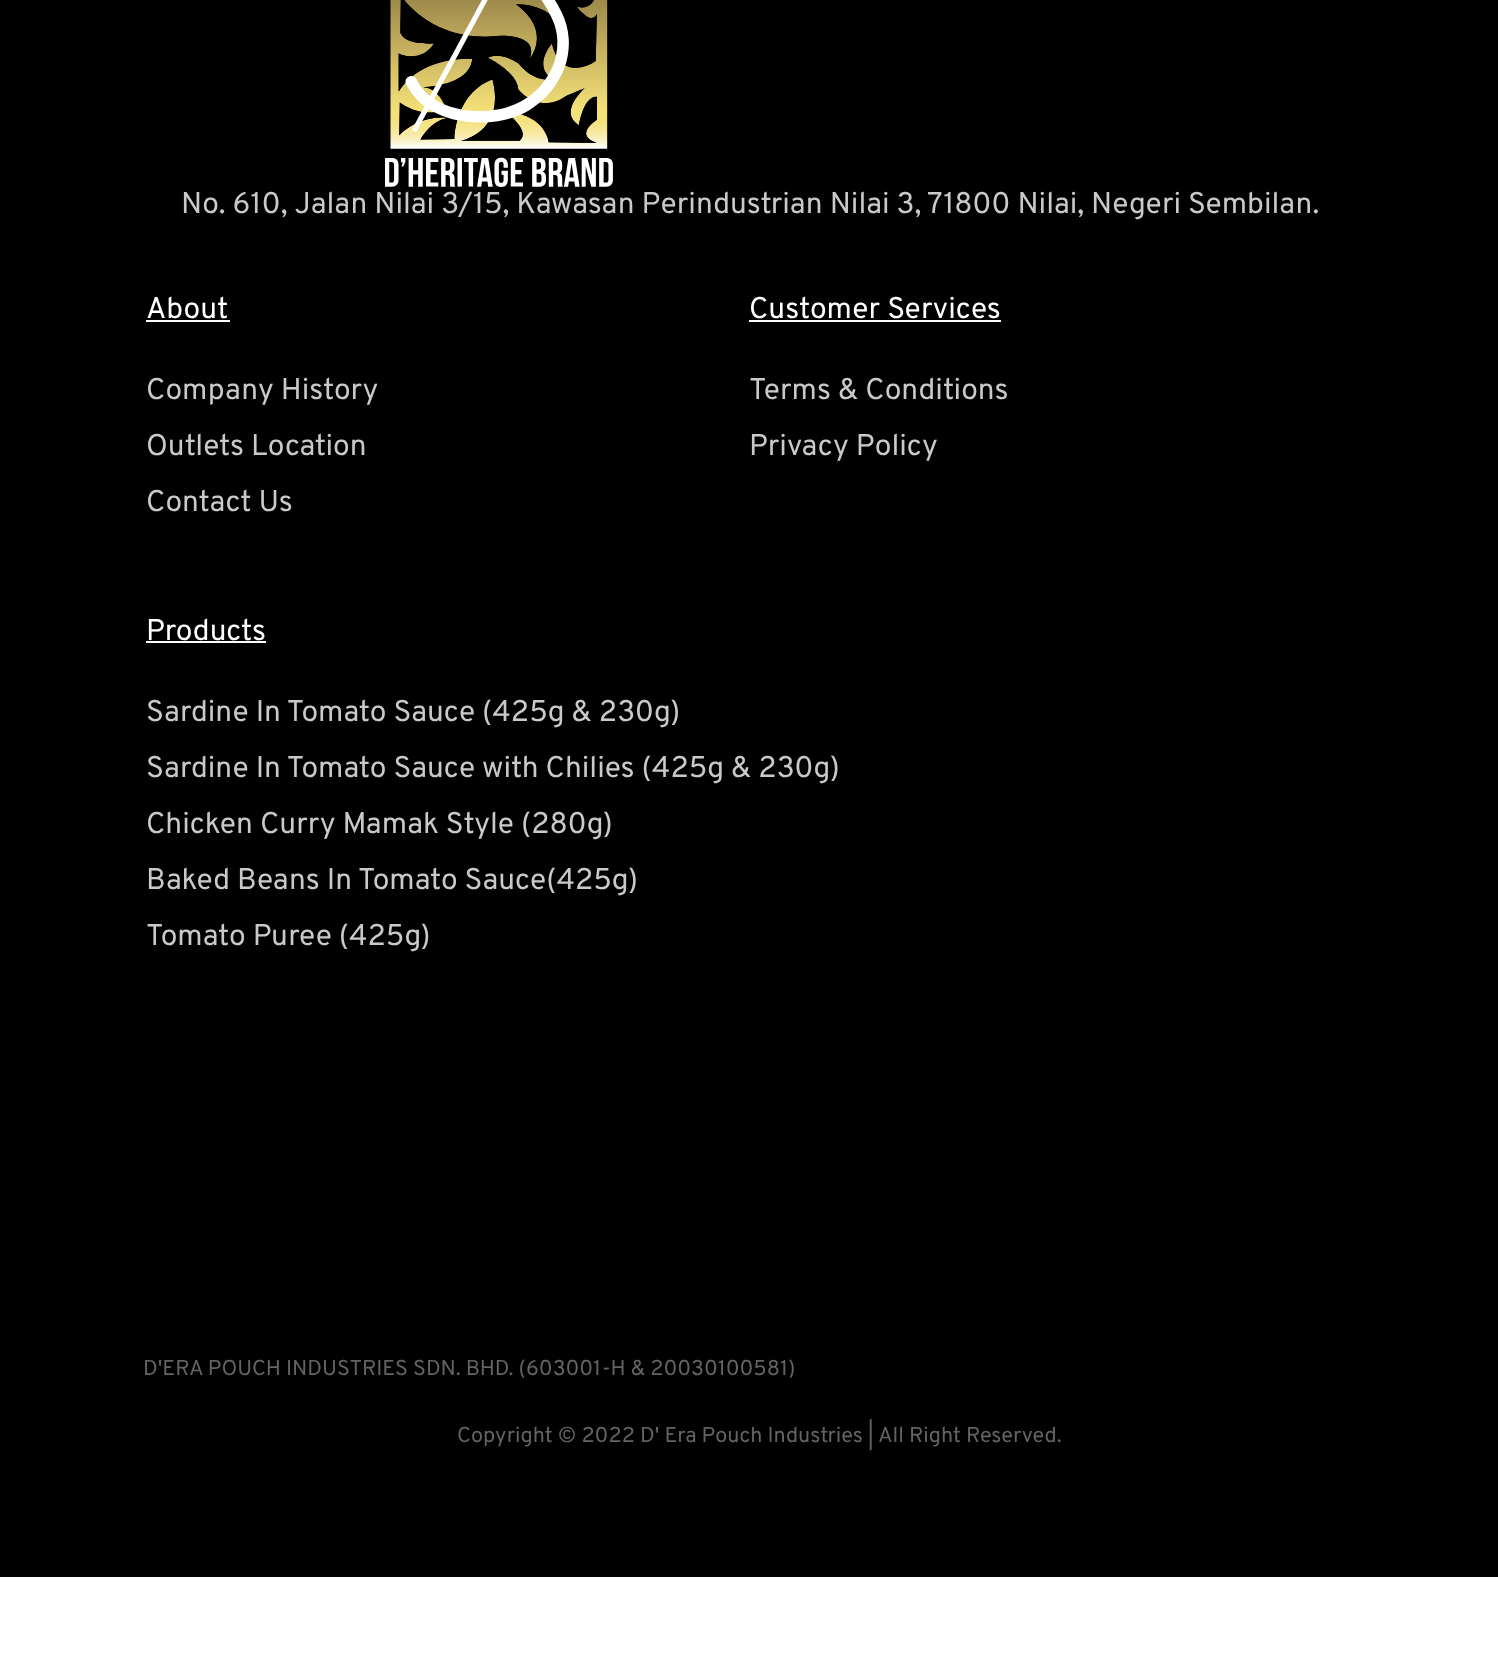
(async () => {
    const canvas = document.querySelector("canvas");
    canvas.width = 1498;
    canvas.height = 1665;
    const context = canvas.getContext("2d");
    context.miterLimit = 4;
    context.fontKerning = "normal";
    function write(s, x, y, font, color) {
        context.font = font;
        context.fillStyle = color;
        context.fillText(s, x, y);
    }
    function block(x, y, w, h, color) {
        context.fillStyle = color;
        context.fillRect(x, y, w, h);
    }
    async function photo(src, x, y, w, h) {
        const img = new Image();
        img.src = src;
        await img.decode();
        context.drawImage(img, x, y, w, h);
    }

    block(0, 0, 1498, 1665, "rgb(255, 255, 255)");
    block(0, 0, 1498, 1577, "rgb(0, 0, 0)");
    await photo("media/1.png", 385, 0, 228, 187);
    write("No. 610, Jalan Nilai 3/15, Kawasan Perindustrian Nilai 3, 71800 Nilai, Negeri Sembilan.", 181, 213, "29.9px Overpass", "rgb(201, 201, 201)");
    write("About", 146, 318, "29.9px Overpass", "rgb(255, 255, 255)");
    block(146, 320, 84, 2, "rgb(255, 255, 255)");
    write("Company History", 146, 399, "29.9px Overpass", "rgb(201, 201, 201)");
    write("Outlets Location", 146, 455, "29.9px Overpass", "rgb(201, 201, 201)");
    write("Contact Us", 146, 511, "29.9px Overpass", "rgb(201, 201, 201)");
    write("Customer Services", 749, 318, "29.9px Overpass", "rgb(255, 255, 255)");
    block(749, 320, 252, 2, "rgb(255, 255, 255)");
    write("Terms & Conditions", 749, 399, "29.9px Overpass", "rgb(201, 201, 201)");
    write("Privacy Policy", 749, 455, "29.9px Overpass", "rgb(201, 201, 201)");
    write("Products", 146, 640, "29.9px Overpass", "rgb(255, 255, 255)");
    block(146, 641, 120, 2, "rgb(255, 255, 255)");
    write("Sardine In Tomato Sauce (425g & 230g)", 146, 721, "29.9px Overpass", "rgb(201, 201, 201)");
    write("Sardine In Tomato Sauce with Chilies (425g & 230g)", 146, 777, "29.9px Overpass", "rgb(201, 201, 201)");
    write("Chicken Curry Mamak Style (280g)", 146, 833, "29.9px Overpass", "rgb(201, 201, 201)");
    write("Baked Beans In Tomato Sauce(425g)", 146, 889, "29.9px Overpass", "rgb(201, 201, 201)");
    write("Tomato Puree (425g)", 146, 945, "29.9px Overpass", "rgb(201, 201, 201)");
    write("D'ERA POUCH INDUSTRIES SDN. BHD. (603001-H & 20030100581)", 143, 1375, "21.6px Overpass", "rgb(99, 99, 99)");
    write("Copyright © 2022 D' Era Pouch Industries | All Right Reserved.", 457, 1442, "21.6px Overpass", "rgb(99, 99, 99)");
})();
